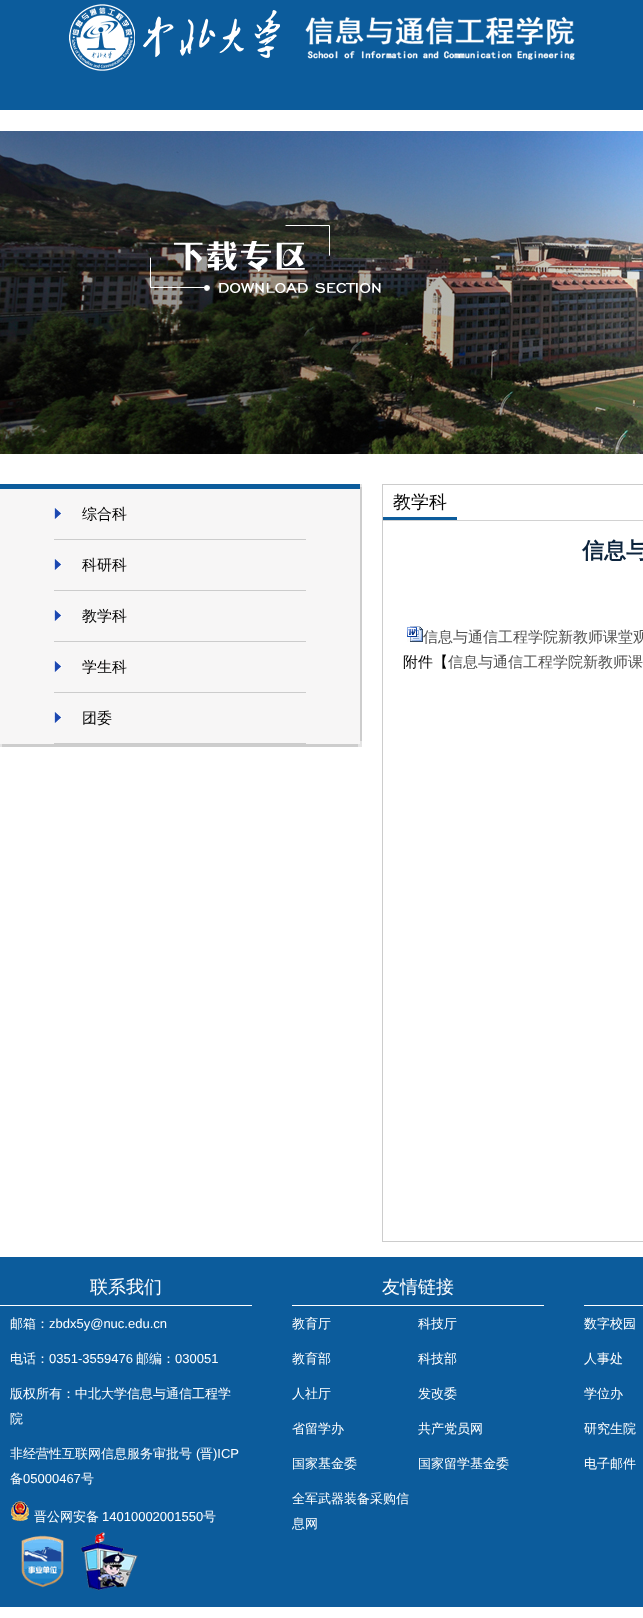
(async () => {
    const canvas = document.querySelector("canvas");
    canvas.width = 643;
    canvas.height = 1618;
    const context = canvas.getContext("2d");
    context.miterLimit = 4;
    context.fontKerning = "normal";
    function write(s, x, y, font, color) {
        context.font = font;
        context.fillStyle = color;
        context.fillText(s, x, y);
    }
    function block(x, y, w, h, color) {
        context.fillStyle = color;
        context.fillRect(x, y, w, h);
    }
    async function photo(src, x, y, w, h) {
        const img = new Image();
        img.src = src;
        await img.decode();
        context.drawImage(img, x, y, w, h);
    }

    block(0, 0, 643, 1618, "rgb(255, 255, 255)");
    block(0, 0, 643, 110, "rgb(12, 92, 156)");
    await photo("media/1.png", 69, 4, 506, 67);
    await photo("media/2.png", 0, 131, 643, 323);
    context.fillStyle = "rgba(0, 0, 0, 0.1)";
    context.filter = "blur(0.5px)";
    context.beginPath();
    context.rect(-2, 487, 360, 260);
    context.fill();
    context.filter = "none";
    context.save();
    context.beginPath();
    context.rect(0, 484, 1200, 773);
    context.clip();
    context.filter = "blur(0.5px)";
    context.beginPath();
    context.rect(2, 481, 360, 260);
    context.fill();
    context.filter = "none";
    context.restore();
    context.filter = "blur(0.5px)";
    context.beginPath();
    context.rect(2, 487, 360, 260);
    context.fill();
    context.filter = "none";
    block(0, 489, 360, 255, "rgb(247, 246, 246)");
    block(0, 484, 360, 5, "rgb(12, 92, 156)");
    block(54, 539, 252, 1, "rgb(204, 204, 204)");
    await photo("media/3.png", 54, 508, 8, 11);
    write("综合科", 82, 519, "500 15px WenQuanYi Zen Hei", "rgb(0, 0, 0)");
    block(54, 590, 252, 1, "rgb(204, 204, 204)");
    await photo("media/3.png", 54, 559, 8, 11);
    write("科研科", 82, 570, "500 15px WenQuanYi Zen Hei", "rgb(0, 0, 0)");
    block(54, 641, 252, 1, "rgb(204, 204, 204)");
    await photo("media/3.png", 54, 610, 8, 11);
    write("教学科", 82, 621, "500 15px WenQuanYi Zen Hei", "rgb(0, 0, 0)");
    block(54, 692, 252, 1, "rgb(204, 204, 204)");
    await photo("media/3.png", 54, 661, 8, 11);
    write("学生科", 82, 672, "500 15px WenQuanYi Zen Hei", "rgb(0, 0, 0)");
    block(54, 743, 252, 1, "rgb(204, 204, 204)");
    await photo("media/3.png", 54, 712, 8, 11);
    write("团委", 82, 723, "500 15px WenQuanYi Zen Hei", "rgb(0, 0, 0)");
    context.strokeStyle = "rgb(204, 204, 204)";
    context.strokeRect(382.5, 484.5, 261, 757);
    block(383, 520, 260, 1, "rgb(210, 210, 210)");
    write("教学科", 393, 508, "500 18px WenQuanYi Zen Hei", "rgb(6, 6, 6)");
    block(383, 517, 74, 3, "rgb(12, 92, 156)");
    write("信息与", 582, 558, "bold 22px WenQuanYi Zen Hei", "rgb(12, 36, 61)");
    await photo("media/4.png", 407, 626, 16, 16);
    write("信息与通信工程学院新教师课堂观", 423, 642, "500 15px WenQuanYi Zen Hei", "rgb(80, 80, 80)");
    write("附件【", 403, 667, "500 15px WenQuanYi Zen Hei", "rgb(0, 0, 0)");
    write("信息与通信工程学院新教师课", 448, 667, "500 15px WenQuanYi Zen Hei", "rgb(80, 80, 80)");
    block(0, 1257, 643, 350, "rgb(12, 92, 156)");
    block(0, 1305, 252, 1, "rgb(255, 255, 255)");
    write("联系我们", 90, 1293, "500 18px WenQuanYi Zen Hei", "rgb(255, 255, 255)");
    write("邮箱：", 10, 1328, "500 13px WenQuanYi Zen Hei", "rgb(255, 255, 255)");
    write("zbdx5y@nuc.edu.cn", 49, 1328, "13px Liberation Sans", "rgb(255, 255, 255)");
    write("电话：", 10, 1363, "500 13px WenQuanYi Zen Hei", "rgb(255, 255, 255)");
    write("0351-3559476", 49, 1363, "13px Liberation Sans", "rgb(255, 255, 255)");
    write("邮编：", 136, 1363, "500 13px WenQuanYi Zen Hei", "rgb(255, 255, 255)");
    write("030051", 175, 1363, "13px Liberation Sans", "rgb(255, 255, 255)");
    write("版权所有：中北大学信息与通信工程学", 10, 1398, "500 13px WenQuanYi Zen Hei", "rgb(255, 255, 255)");
    write("院", 10, 1423, "500 13px WenQuanYi Zen Hei", "rgb(255, 255, 255)");
    write("非经营性互联网信息服务审批号", 10, 1458, "500 13px WenQuanYi Zen Hei", "rgb(255, 255, 255)");
    write("(", 196, 1458, "13px Liberation Sans", "rgb(255, 255, 255)");
    write("晋", 200, 1458, "500 13px WenQuanYi Zen Hei", "rgb(255, 255, 255)");
    write(")ICP", 213, 1458, "13px Liberation Sans", "rgb(255, 255, 255)");
    write("备", 10, 1483, "500 13px WenQuanYi Zen Hei", "rgb(255, 255, 255)");
    write("05000467", 23, 1483, "13px Liberation Sans", "rgb(255, 255, 255)");
    write("号", 81, 1483, "500 13px WenQuanYi Zen Hei", "rgb(255, 255, 255)");
    await photo("media/5.png", 11, 1501, 18, 20);
    write("晋公网安备", 34, 1521, "500 13px WenQuanYi Zen Hei", "rgb(255, 255, 255)");
    write("14010002001550", 102, 1521, "13px Liberation Sans", "rgb(255, 255, 255)");
    write("号", 203, 1521, "500 13px WenQuanYi Zen Hei", "rgb(255, 255, 255)");
    await photo("media/6.png", 21, 1535, 43, 53);
    await photo("media/7.png", 80, 1532, 58, 59);
    block(292, 1305, 252, 1, "rgb(255, 255, 255)");
    write("友情链接", 382, 1293, "500 18px WenQuanYi Zen Hei", "rgb(255, 255, 255)");
    write("教育厅", 292, 1328, "500 13px WenQuanYi Zen Hei", "rgb(255, 255, 255)");
    write("科技厅", 418, 1328, "500 13px WenQuanYi Zen Hei", "rgb(255, 255, 255)");
    write("教育部", 292, 1363, "500 13px WenQuanYi Zen Hei", "rgb(255, 255, 255)");
    write("科技部", 418, 1363, "500 13px WenQuanYi Zen Hei", "rgb(255, 255, 255)");
    write("人社厅", 292, 1398, "500 13px WenQuanYi Zen Hei", "rgb(255, 255, 255)");
    write("发改委", 418, 1398, "500 13px WenQuanYi Zen Hei", "rgb(255, 255, 255)");
    write("省留学办", 292, 1433, "500 13px WenQuanYi Zen Hei", "rgb(255, 255, 255)");
    write("共产党员网", 418, 1433, "500 13px WenQuanYi Zen Hei", "rgb(255, 255, 255)");
    write("国家基金委", 292, 1468, "500 13px WenQuanYi Zen Hei", "rgb(255, 255, 255)");
    write("国家留学基金委", 418, 1468, "500 13px WenQuanYi Zen Hei", "rgb(255, 255, 255)");
    write("全军武器装备采购信", 292, 1503, "500 13px WenQuanYi Zen Hei", "rgb(255, 255, 255)");
    write("息网", 292, 1528, "500 13px WenQuanYi Zen Hei", "rgb(255, 255, 255)");
    block(584, 1305, 59, 1, "rgb(255, 255, 255)");
    write("数字校园", 584, 1328, "500 13px WenQuanYi Zen Hei", "rgb(255, 255, 255)");
    write("人事处", 584, 1363, "500 13px WenQuanYi Zen Hei", "rgb(255, 255, 255)");
    write("学位办", 584, 1398, "500 13px WenQuanYi Zen Hei", "rgb(255, 255, 255)");
    write("研究生院", 584, 1433, "500 13px WenQuanYi Zen Hei", "rgb(255, 255, 255)");
    write("电子邮件", 584, 1468, "500 13px WenQuanYi Zen Hei", "rgb(255, 255, 255)");
})();
